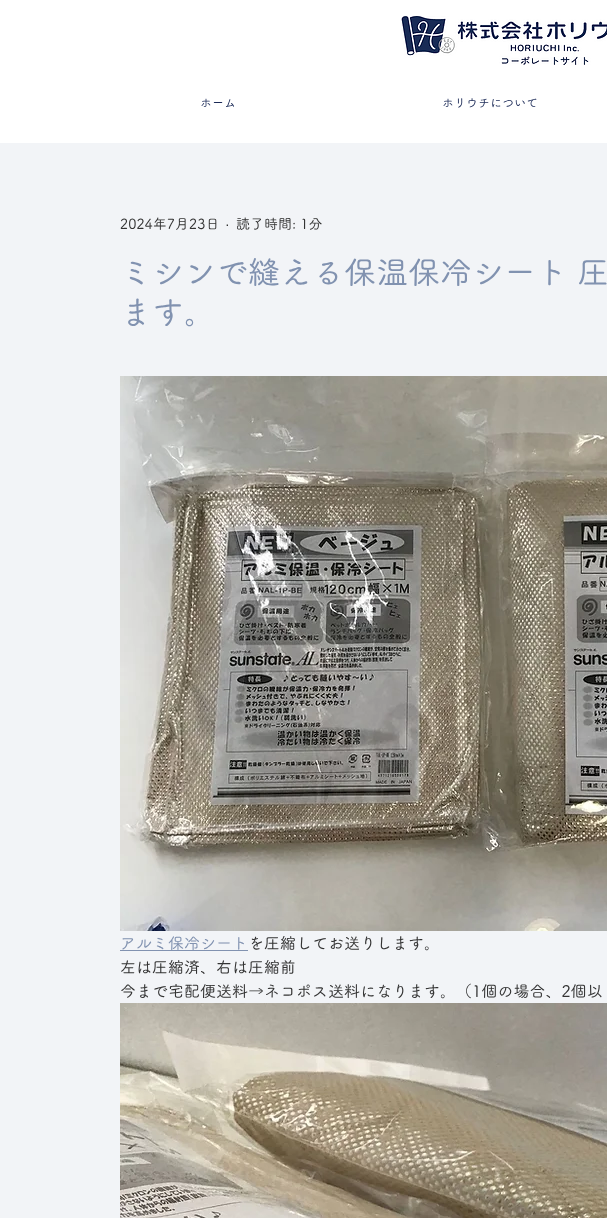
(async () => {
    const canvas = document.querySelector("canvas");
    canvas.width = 607;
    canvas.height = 1218;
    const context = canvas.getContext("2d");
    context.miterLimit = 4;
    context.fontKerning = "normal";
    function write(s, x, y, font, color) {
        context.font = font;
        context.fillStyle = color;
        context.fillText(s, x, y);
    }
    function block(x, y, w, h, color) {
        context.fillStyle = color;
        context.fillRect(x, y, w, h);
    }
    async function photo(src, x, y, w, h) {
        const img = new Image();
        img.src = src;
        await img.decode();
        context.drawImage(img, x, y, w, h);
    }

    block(0, 0, 607, 1218, "rgb(242, 244, 247)");
    block(0, 0, 607, 143, "rgb(255, 255, 255)");
    await photo("media/1.png", 401, 16, 206, 49);
    write("ホーム", 200, 107, "500 12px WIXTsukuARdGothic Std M", "rgb(26, 41, 86)");
    write("ホリウチについて", 442, 107, "500 12px WIXTsukuARdGothic Std M", "rgb(26, 41, 86)");
    write("2024年7月23日", 120, 229, "500 14px WIXTsukuARdGothic Std M", "rgb(51, 51, 51)");
    write("·", 225, 229, "14px Liberation Sans", "rgb(51, 51, 51)");
    write("読了時間: 1分", 236, 229, "500 14px WIXTsukuARdGothic Std M", "rgb(51, 51, 51)");
    write("ミシンで縫える保温保冷シート 圧", 120, 284, "500 32px WIXTsukuARdGothic Std M", "rgb(129, 146, 176)");
    write("ます。", 120, 324, "500 32px WIXTsukuARdGothic Std M", "rgb(129, 146, 176)");
    await photo("media/2.png", 120, 376, 487, 555);
    block(120, 950, 128, 1, "rgb(129, 146, 176)");
    write("アルミ保冷シート", 120, 949, "500 16px WIXTsukuARdGothic Std M", "rgb(129, 146, 176)");
    write("を圧縮してお送りします。", 248, 949, "500 16px WIXTsukuARdGothic Std M", "rgb(51, 51, 51)");
    write("左は圧縮済、右は圧縮前", 120, 973, "500 16px WIXTsukuARdGothic Std M", "rgb(51, 51, 51)");
    write("今まで宅配便送料→ネコポス送料になります。（1個の場合、2個以", 120, 997, "500 16px WIXTsukuARdGothic Std M", "rgb(51, 51, 51)");
    await photo("media/3.png", 120, 1003, 487, 215);
})();
